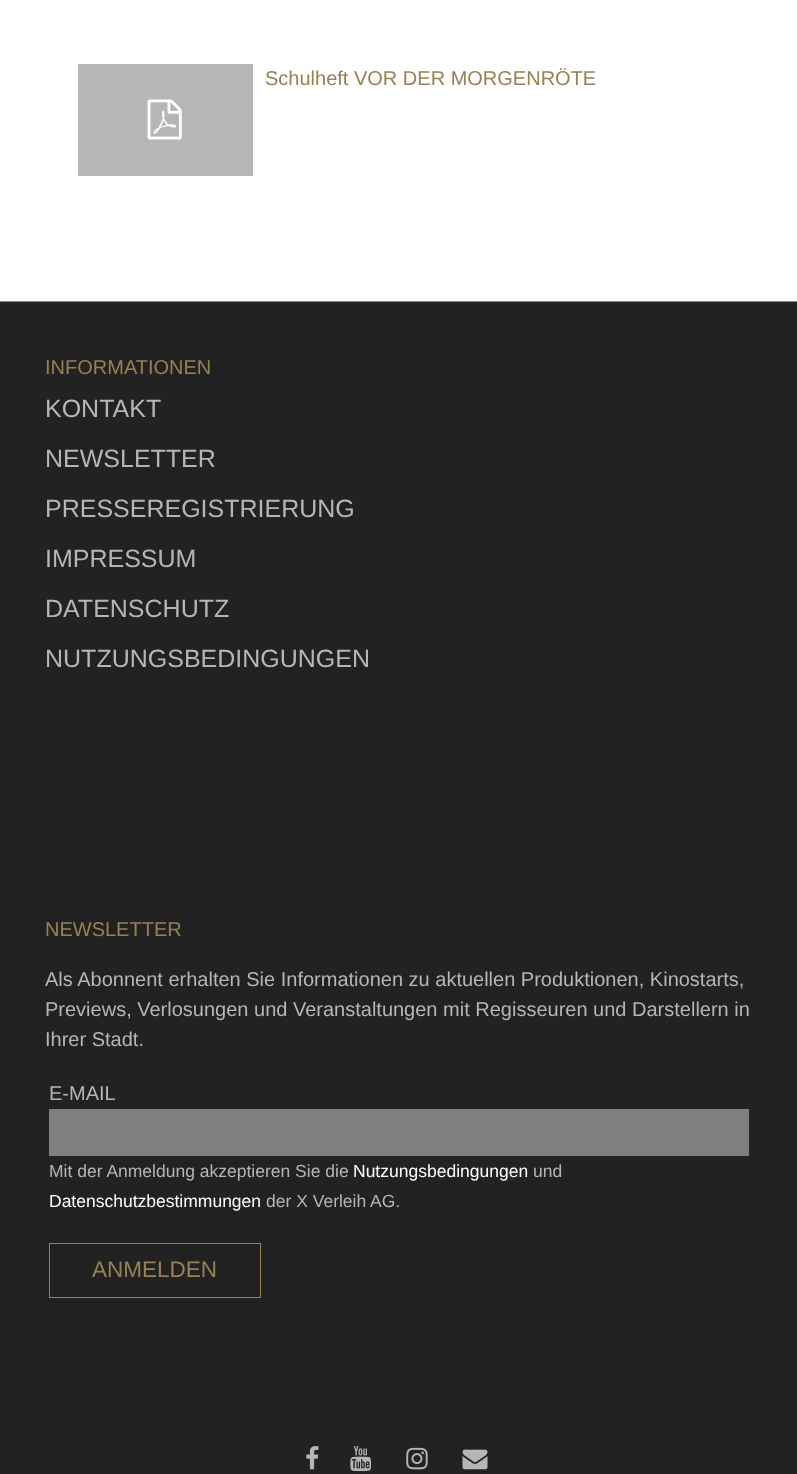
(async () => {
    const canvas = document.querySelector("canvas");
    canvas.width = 797;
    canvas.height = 1474;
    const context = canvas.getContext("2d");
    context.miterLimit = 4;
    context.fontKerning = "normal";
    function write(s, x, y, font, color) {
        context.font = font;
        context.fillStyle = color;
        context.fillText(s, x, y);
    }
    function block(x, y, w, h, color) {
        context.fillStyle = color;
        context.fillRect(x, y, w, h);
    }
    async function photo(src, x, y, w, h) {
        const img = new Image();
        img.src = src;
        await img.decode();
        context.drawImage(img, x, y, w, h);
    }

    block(0, 0, 797, 1474, "rgb(255, 255, 255)");
    block(78, 64, 175, 112, "rgb(182, 182, 180)");
    await photo("media/1.png", 147, 99, 35, 41);
    write("Schulheft VOR DER MORGENRÖTE", 265, 85, "20px Liberation Sans", "rgb(150, 130, 82)");
    block(0, 302, 797, 1172, "rgb(34, 34, 34)");
    block(0, 301, 797, 1, "rgb(150, 130, 82)");
    write("INFORMATIONEN", 45, 374, "20px Liberation Sans", "rgb(150, 130, 82)");
    write("KONTAKT", 45, 417, "25px Liberation Sans", "rgb(182, 182, 180)");
    write("NEWSLETTER", 45, 467, "25px Liberation Sans", "rgb(182, 182, 180)");
    write("PRESSEREGISTRIERUNG", 45, 517, "25px Liberation Sans", "rgb(182, 182, 180)");
    write("IMPRESSUM", 45, 567, "25px Liberation Sans", "rgb(182, 182, 180)");
    write("DATENSCHUTZ", 45, 617, "25px Liberation Sans", "rgb(182, 182, 180)");
    write("NUTZUNGSBEDINGUNGEN", 45, 667, "25px Liberation Sans", "rgb(182, 182, 180)");
    write("NEWSLETTER", 45, 936, "20px Liberation Sans", "rgb(150, 130, 82)");
    write("Als Abonnent erhalten Sie Informationen zu aktuellen Produktionen, Kinostarts,", 45, 986, "20px Liberation Sans", "rgb(182, 182, 180)");
    write("Previews, Verlosungen und Veranstaltungen mit Regisseuren und Darstellern in", 45, 1016, "20px Liberation Sans", "rgb(182, 182, 180)");
    write("Ihrer Stadt.", 45, 1046, "20px Liberation Sans", "rgb(182, 182, 180)");
    write("E-MAIL", 49, 1100, "20px Liberation Sans", "rgb(182, 182, 180)");
    block(49, 1109, 700, 47, "rgb(127, 127, 127)");
    write("Mit der Anmeldung akzeptieren Sie die", 49, 1177, "17.5px Liberation Sans", "rgb(182, 182, 180)");
    write("Nutzungsbedingungen", 353, 1177, "17.5px Liberation Sans", "rgb(255, 255, 255)");
    write("und", 533, 1177, "17.5px Liberation Sans", "rgb(182, 182, 180)");
    write("Datenschutzbestimmungen", 49, 1207, "17.5px Liberation Sans", "rgb(255, 255, 255)");
    write("der X Verleih AG.", 266, 1207, "17.5px Liberation Sans", "rgb(182, 182, 180)");
    context.strokeStyle = "rgb(150, 130, 82)";
    context.strokeRect(49.5, 1243.5, 211, 54);
    write("ANMELDEN", 92, 1277, "22.5px Liberation Sans", "rgb(150, 130, 82)");
    await photo("media/2.png", 306, 1446, 13, 24);
    await photo("media/3.png", 350, 1446, 22, 26);
    await photo("media/4.png", 406, 1447, 22, 23);
    await photo("media/5.png", 462, 1449, 26, 21);
})();
